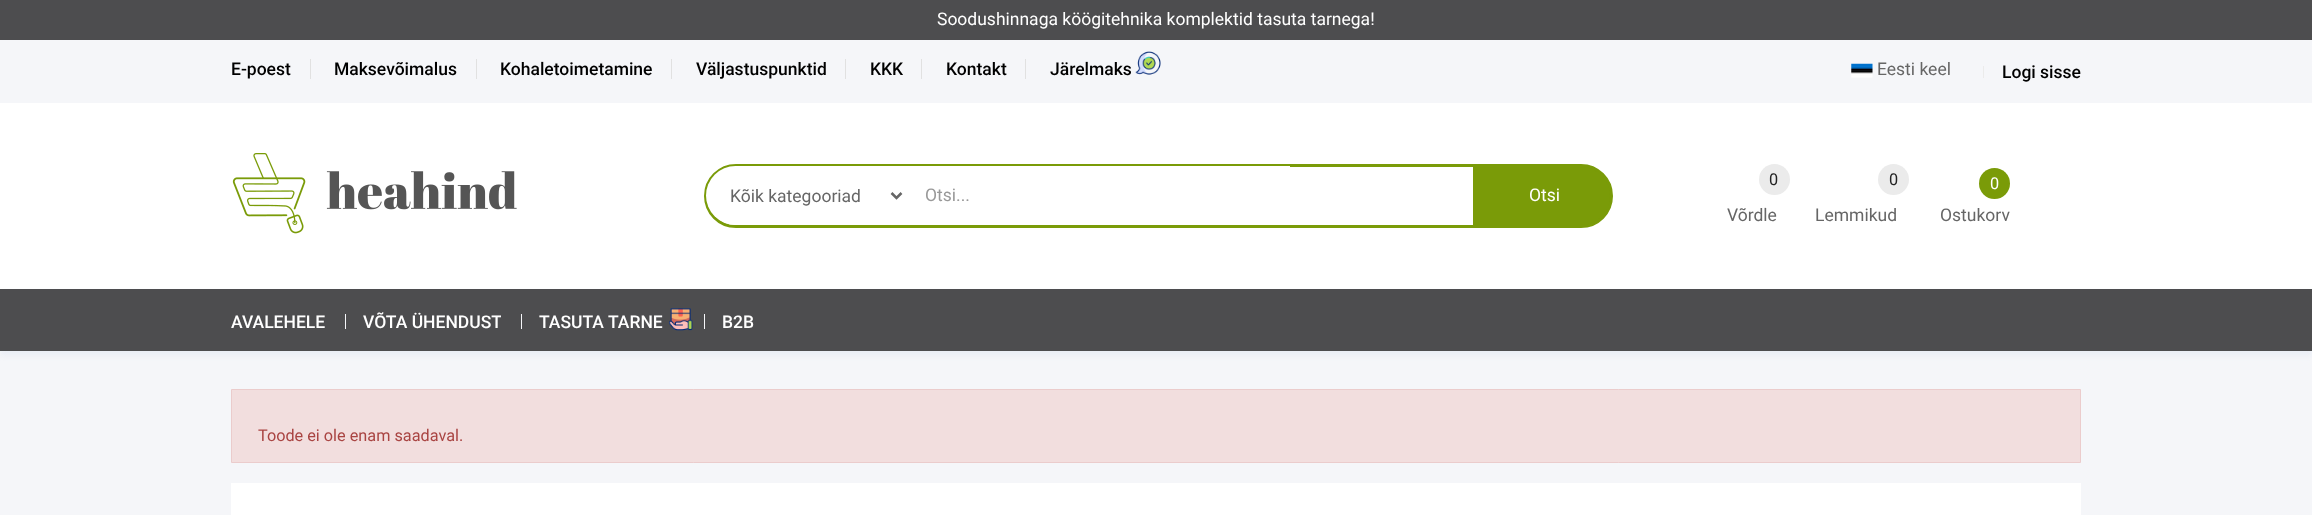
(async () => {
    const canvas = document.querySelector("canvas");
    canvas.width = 2312;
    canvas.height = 515;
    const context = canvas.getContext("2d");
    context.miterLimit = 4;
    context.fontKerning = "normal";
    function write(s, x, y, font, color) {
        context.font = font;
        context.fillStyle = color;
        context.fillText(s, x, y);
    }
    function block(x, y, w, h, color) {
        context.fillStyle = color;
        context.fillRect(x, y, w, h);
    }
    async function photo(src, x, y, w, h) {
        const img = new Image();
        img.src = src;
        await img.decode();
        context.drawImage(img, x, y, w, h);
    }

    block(0, 0, 2312, 515, "rgb(245, 246, 249)");
    block(0, 103, 2312, 186, "rgb(255, 255, 255)");
    block(0, 0, 2312, 40, "rgb(77, 77, 79)");
    write("Soodushinnaga köögitehnika komplektid tasuta tarnega!", 937, 25, "17.5px Roboto", "rgb(255, 255, 255)");
    write("E-poest", 231, 75, "500 17.5px Roboto", "rgb(0, 0, 0)");
    block(310, 59, 1, 20, "rgb(225, 225, 225)");
    write("Maksevõimalus", 334, 75, "500 17.5px Roboto", "rgb(0, 0, 0)");
    block(476, 59, 1, 20, "rgb(225, 225, 225)");
    write("Kohaletoimetamine", 500, 75, "500 17.5px Roboto", "rgb(0, 0, 0)");
    block(671, 59, 1, 20, "rgb(225, 225, 225)");
    write("Väljastuspunktid", 696, 75, "500 17.5px Roboto", "rgb(0, 0, 0)");
    block(845, 59, 1, 20, "rgb(225, 225, 225)");
    write("KKK", 870, 75, "500 17.5px Roboto", "rgb(0, 0, 0)");
    block(921, 59, 1, 20, "rgb(225, 225, 225)");
    write("Kontakt", 946, 75, "500 17.5px Roboto", "rgb(0, 0, 0)");
    block(1025, 59, 1, 20, "rgb(225, 225, 225)");
    write("Järelmaks", 1050, 75, "500 17.5px Roboto", "rgb(0, 0, 0)");
    await photo("media/1.png", 1135, 51, 26, 24);
    await photo("media/2.png", 1851, 63, 22, 15);
    write("Eesti keel", 1877, 75, "17.5px Roboto", "rgb(102, 102, 102)");
    block(1983, 66, 1, 12, "rgb(235, 235, 235)");
    write("Logi sisse", 2002, 78, "500 17.5px Roboto", "rgb(0, 0, 0)");
    await photo("media/3.png", 232, 153, 285, 81);
    context.beginPath();
    context.roundRect(705.5, 165.5, 769, 61, [30.5, 0, 0, 30.5]);
    context.strokeStyle = "rgb(122, 155, 8)";
    context.lineWidth = 3;
    context.stroke();
    context.fillStyle = "rgb(255, 255, 255)";
    context.beginPath();
    context.roundRect(706, 166, 200, 59, [29.5, 0, 0, 29.5]);
    context.fill();
    context.beginPath();
    context.moveTo(891.5, 193);
    context.lineTo(896.5, 198);
    context.lineTo(901.5, 193);
    context.strokeStyle = "rgb(102, 102, 102)";
    context.lineWidth = 2.5;
    context.stroke();
    write("Kõik kategooriad", 730, 202, "17.5px Roboto", "rgb(102, 102, 102)");
    block(906, 166, 384, 1, "rgb(255, 255, 255)");
    write("Otsi...", 925, 201, "17.5px Roboto", "rgb(153, 153, 153)");
    context.fillStyle = "rgb(122, 155, 8)";
    context.beginPath();
    context.roundRect(1477.5, 165.5, 134, 61, [0, 30.5, 30.5, 0]);
    context.fill();
    context.strokeStyle = "rgb(122, 155, 8)";
    context.lineWidth = 3;
    context.stroke();
    write("Otsi", 1529, 201, "17.5px Roboto", "rgb(255, 255, 255)");
    context.fillStyle = "rgb(235, 235, 235)";
    context.beginPath();
    context.arc(1774.5, 179.5, 15.5, 0, Math.PI * 2);
    context.fill();
    write("0", 1769, 185, "16.25px Roboto", "rgb(34, 34, 34)");
    write("Võrdle", 1727, 221, "17.5px Roboto", "rgb(102, 102, 102)");
    context.fillStyle = "rgb(235, 235, 235)";
    context.beginPath();
    context.arc(1893.5, 179.5, 15.5, 0, Math.PI * 2);
    context.fill();
    write("0", 1889, 185, "16.25px Roboto", "rgb(34, 34, 34)");
    write("Lemmikud", 1815, 221, "17.5px Roboto", "rgb(102, 102, 102)");
    context.fillStyle = "rgb(122, 155, 8)";
    context.beginPath();
    context.arc(1994.5, 183.5, 15.5, 0, Math.PI * 2);
    context.fill();
    write("0", 1990, 189, "16.25px Roboto", "rgb(255, 255, 255)");
    write("Ostukorv", 1940, 221, "17.5px Roboto", "rgb(102, 102, 102)");
    context.fillStyle = "rgba(210, 217, 237, 0.3)";
    context.filter = "blur(3px)";
    context.beginPath();
    context.rect(0, 293, 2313, 62);
    context.fill();
    context.filter = "none";
    block(0, 289, 2312, 62, "rgb(77, 77, 79)");
    write("AVALEHELE", 231, 328, "500 17.5px Roboto", "rgb(255, 255, 255)");
    block(345, 314, 1, 15, "rgb(245, 246, 249)");
    context.save();
    context.beginPath();
    context.rect(363, 290, 138, 63);
    context.clip();
    write("VÕTA ÜHENDUST", 363, 328, "500 17.5px Roboto", "rgb(255, 255, 255)");
    context.restore();
    block(521, 314, 1, 15, "rgb(245, 246, 249)");
    write("TASUTA TARNE", 539, 328, "500 17.5px Roboto", "rgb(255, 255, 255)");
    await photo("media/4.png", 669, 308, 24, 23);
    block(704, 314, 1, 15, "rgb(245, 246, 249)");
    write("B2B", 722, 328, "500 17.5px Roboto", "rgb(255, 255, 255)");
    context.fillStyle = "rgb(242, 222, 222)";
    context.beginPath();
    context.rect(231.5, 389.5, 1849, 73);
    context.fill();
    context.strokeStyle = "rgb(235, 204, 204)";
    context.lineWidth = 1;
    context.stroke();
    write("Toode ei ole enam saadaval.", 258, 441, "16.25px Roboto", "rgb(169, 68, 66)");
    block(231, 483, 1850, 32, "rgb(255, 255, 255)");
})();
